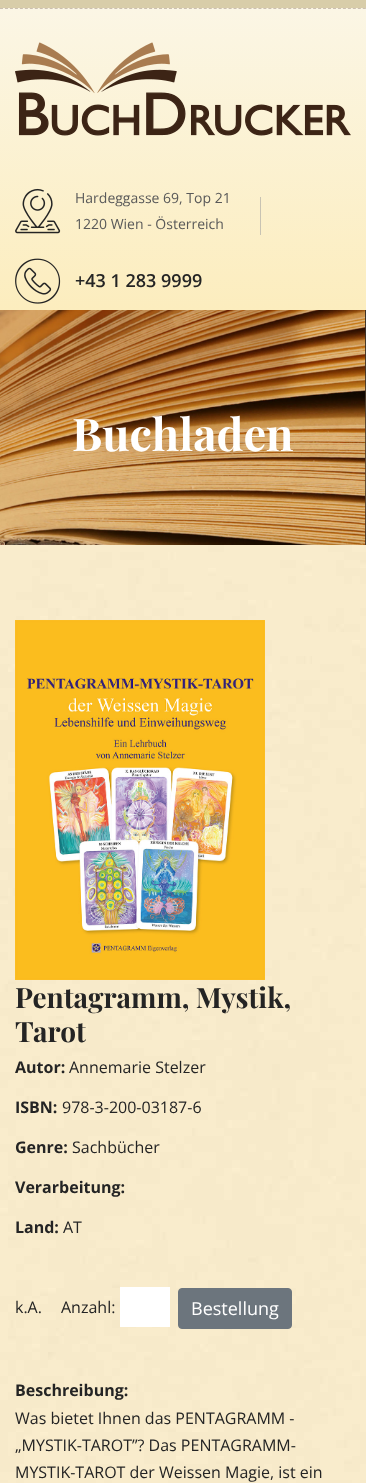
(async () => {
    const canvas = document.querySelector("canvas");
    canvas.width = 366;
    canvas.height = 1483;
    const context = canvas.getContext("2d");
    context.miterLimit = 4;
    context.fontKerning = "normal";
    function write(s, x, y, font, color) {
        context.font = font;
        context.fillStyle = color;
        context.fillText(s, x, y);
    }
    function block(x, y, w, h, color) {
        context.fillStyle = color;
        context.fillRect(x, y, w, h);
    }
    async function photo(src, x, y, w, h) {
        const img = new Image();
        img.src = src;
        await img.decode();
        context.drawImage(img, x, y, w, h);
    }
    let gradient;

    block(0, 0, 366, 1483, "rgb(255, 255, 255)");
    await photo("media/1.png", 0, 545, 366, 938);
    gradient = context.createLinearGradient(183, 310, 183, 8);
    gradient.addColorStop(0, "rgb(252, 237, 190)");
    gradient.addColorStop(1, "rgb(251, 246, 229)");
    context.fillStyle = gradient;
    context.fillRect(0, 8, 366, 302);
    block(0, 0, 366, 8, "rgb(216, 205, 169)");
    context.beginPath();
    context.moveTo(0, 8.5);
    context.lineTo(366, 8.5);
    context.strokeStyle = "rgb(203, 191, 177)";
    context.setLineDash([3, 1.97]);
    context.stroke();
    await photo("media/2.png", 15, 42, 336, 94);
    await photo("media/3.png", 15, 188, 46, 46);
    write("Hardeggasse 69, Top 21", 75, 203, "14px Open Sans", "rgb(89, 89, 89)");
    write("1220 Wien - Österreich", 75, 229, "14px Open Sans", "rgb(89, 89, 89)");
    block(260, 197, 1, 38, "rgb(200, 195, 179)");
    await photo("media/4.png", 15, 258, 46, 46);
    write("+43 1 283 9999", 75, 287, "600 18px Open Sans", "rgb(36, 36, 36)");
    await photo("media/5.png", 0, 310, 366, 235);
    write("Buchladen", 72, 451, "bold 45px Playfair Display", "rgb(255, 255, 255)");
    await photo("media/6.png", 15, 620, 250, 360);
    write("Pentagramm, Mystik,", 15, 1008, "bold 28px Playfair Display", "rgb(36, 36, 36)");
    write("Tarot", 15, 1042, "bold 28px Playfair Display", "rgb(36, 36, 36)");
    write("Autor:", 15, 1073, "bold 16px Open Sans", "rgb(36, 36, 36)");
    write("Annemarie Stelzer", 69, 1073, "16px Open Sans", "rgb(36, 36, 36)");
    write("ISBN:", 15, 1113, "bold 16px Open Sans", "rgb(36, 36, 36)");
    write("978-3-200-03187-6", 62, 1113, "16px Open Sans", "rgb(36, 36, 36)");
    write("Genre:", 15, 1153, "bold 16px Open Sans", "rgb(36, 36, 36)");
    write("Sachbücher", 72, 1153, "16px Open Sans", "rgb(36, 36, 36)");
    write("Verarbeitung:", 15, 1193, "bold 16px Open Sans", "rgb(36, 36, 36)");
    write("Land:", 15, 1233, "bold 16px Open Sans", "rgb(36, 36, 36)");
    write("AT", 63, 1233, "16px Open Sans", "rgb(36, 36, 36)");
    write("k.A.", 15, 1313, "16px Open Sans", "rgb(36, 36, 36)");
    write("Anzahl:", 61, 1313, "16px Open Sans", "rgb(36, 36, 36)");
    block(120, 1287, 50, 40, "rgb(255, 255, 255)");
    context.fillStyle = "rgb(108, 117, 125)";
    context.beginPath();
    context.roundRect(178.5, 1288.5, 113, 40, 3.5);
    context.fill();
    context.strokeStyle = "rgb(108, 117, 125)";
    context.setLineDash([]);
    context.stroke();
    write("Bestellung", 191, 1315, "18px Open Sans", "rgb(255, 255, 255)");
    write("Beschreibung:", 15, 1396, "bold 16px Open Sans", "rgb(36, 36, 36)");
    write("Was bietet Ihnen das PENTAGRAMM -", 15, 1424, "16px Open Sans", "rgb(36, 36, 36)");
    write("„MYSTIK-TAROT”? Das PENTAGRAMM-", 15, 1451, "16px Open Sans", "rgb(36, 36, 36)");
    write("MYSTIK-TAROT der Weissen Magie, ist ein", 15, 1478, "16px Open Sans", "rgb(36, 36, 36)");
})();
